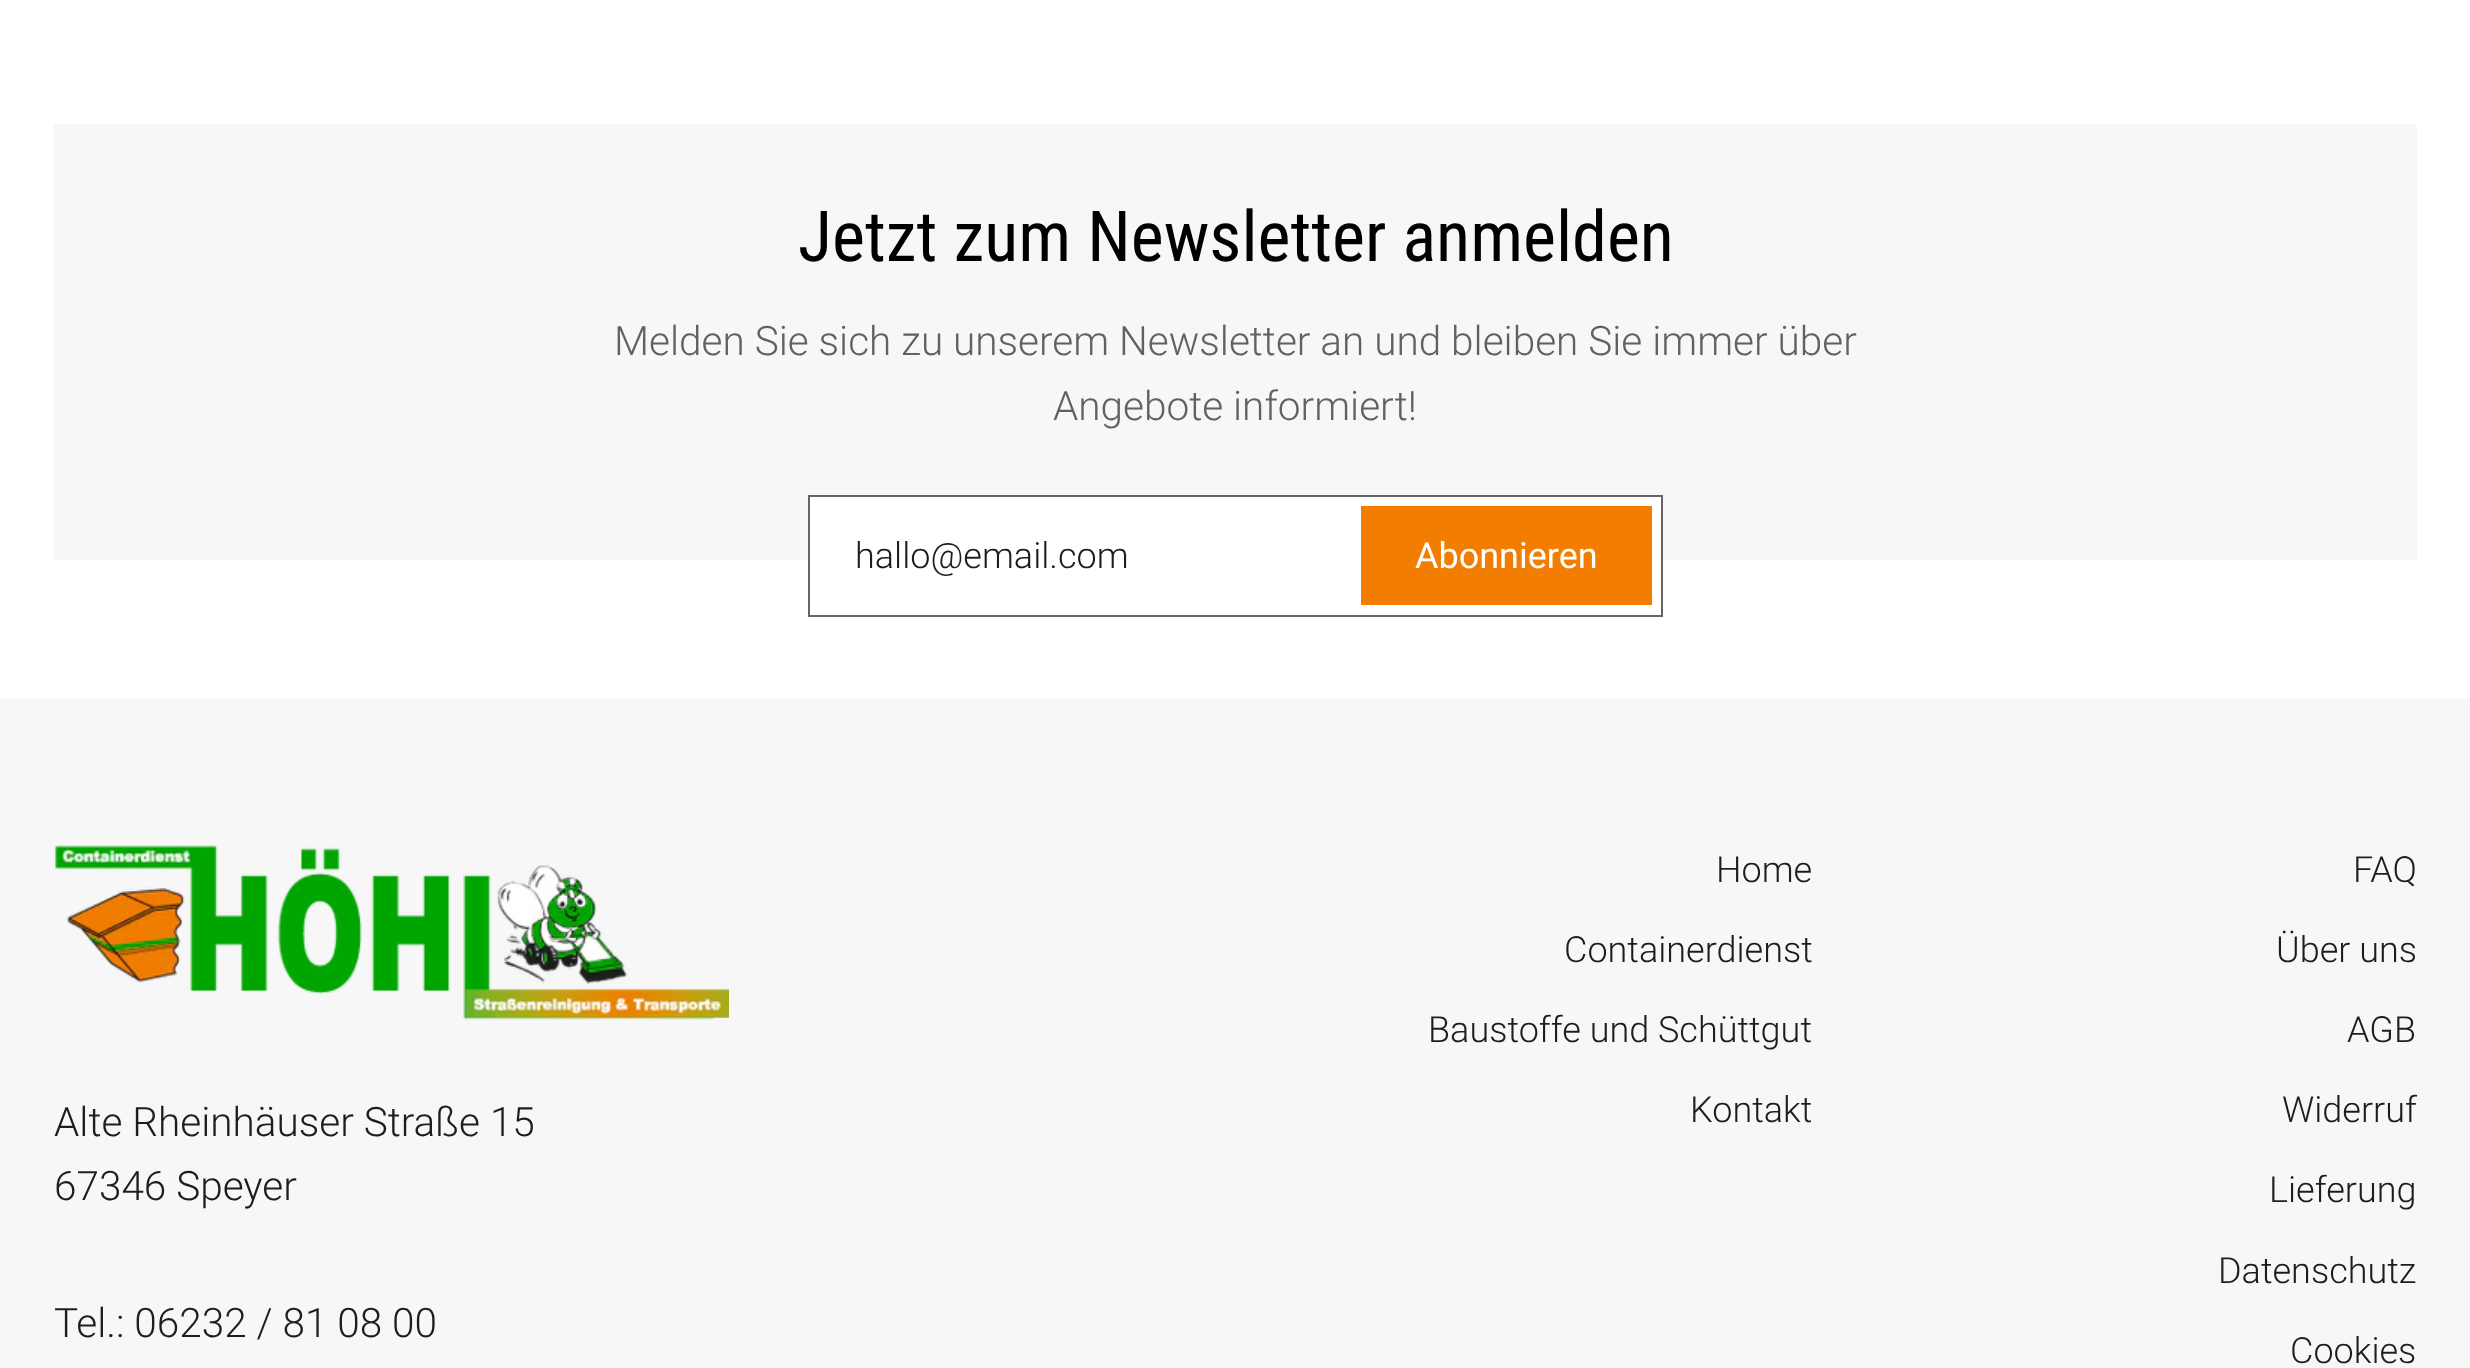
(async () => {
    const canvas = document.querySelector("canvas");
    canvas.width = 2470;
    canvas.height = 1368;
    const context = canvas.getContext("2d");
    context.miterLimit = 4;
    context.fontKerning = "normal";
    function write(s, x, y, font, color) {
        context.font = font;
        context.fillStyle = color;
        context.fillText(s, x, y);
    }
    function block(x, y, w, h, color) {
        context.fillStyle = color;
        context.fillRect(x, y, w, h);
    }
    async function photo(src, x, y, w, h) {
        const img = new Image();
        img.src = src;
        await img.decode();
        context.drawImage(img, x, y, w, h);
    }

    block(0, 0, 2470, 1368, "rgb(255, 255, 255)");
    block(54, 124, 2363, 436, "rgb(247, 247, 247)");
    write("Jetzt zum Newsletter anmelden", 798, 261, "70.25px Roboto Condensed", "rgb(0, 0, 0)");
    write("Melden Sie sich zu unserem Newsletter an und bleiben Sie immer über", 614, 355, "300 40.5px Roboto", "rgb(97, 97, 97)");
    write("Angebote informiert!", 1053, 420, "300 40.5px Roboto", "rgb(97, 97, 97)");
    block(810, 497, 851, 63, "rgb(255, 255, 255)");
    context.strokeStyle = "rgb(101, 101, 101)";
    context.lineWidth = 2;
    context.strokeRect(809, 496, 853, 120);
    write("hallo@email.com", 855, 568, "300 36px Roboto", "rgb(29, 29, 29)");
    block(1361, 506, 291, 99, "rgb(242, 125, 0)");
    write("Abonnieren", 1415, 568, "36px Roboto", "rgb(255, 255, 255)");
    block(0, 698, 2470, 670, "rgb(247, 247, 247)");
    await photo("media/1.png", 54, 845, 675, 175);
    write("Alte Rheinhäuser Straße 15", 54, 1136, "300 40.5px Roboto", "rgb(29, 29, 29)");
    write("67346 Speyer", 54, 1200, "300 40.5px Roboto", "rgb(29, 29, 29)");
    write("Tel.: 06232 / 81 08 00", 54, 1337, "300 40.5px Roboto", "rgb(29, 29, 29)");
    write("Home", 1716, 882, "300 36px Roboto", "rgb(29, 29, 29)");
    write("Containerdienst", 1564, 962, "300 36px Roboto", "rgb(29, 29, 29)");
    write("Baustoffe und Schüttgut", 1428, 1042, "300 36px Roboto", "rgb(29, 29, 29)");
    write("Kontakt", 1690, 1122, "300 36px Roboto", "rgb(29, 29, 29)");
    write("FAQ", 2353, 882, "300 36px Roboto", "rgb(29, 29, 29)");
    write("Über uns", 2276, 962, "300 36px Roboto", "rgb(29, 29, 29)");
    write("AGB", 2347, 1042, "300 36px Roboto", "rgb(29, 29, 29)");
    write("Widerruf", 2282, 1122, "300 36px Roboto", "rgb(29, 29, 29)");
    write("Lieferung", 2269, 1202, "300 36px Roboto", "rgb(29, 29, 29)");
    write("Datenschutz", 2218, 1283, "300 36px Roboto", "rgb(29, 29, 29)");
    write("Cookies", 2290, 1363, "300 36px Roboto", "rgb(29, 29, 29)");
})();
